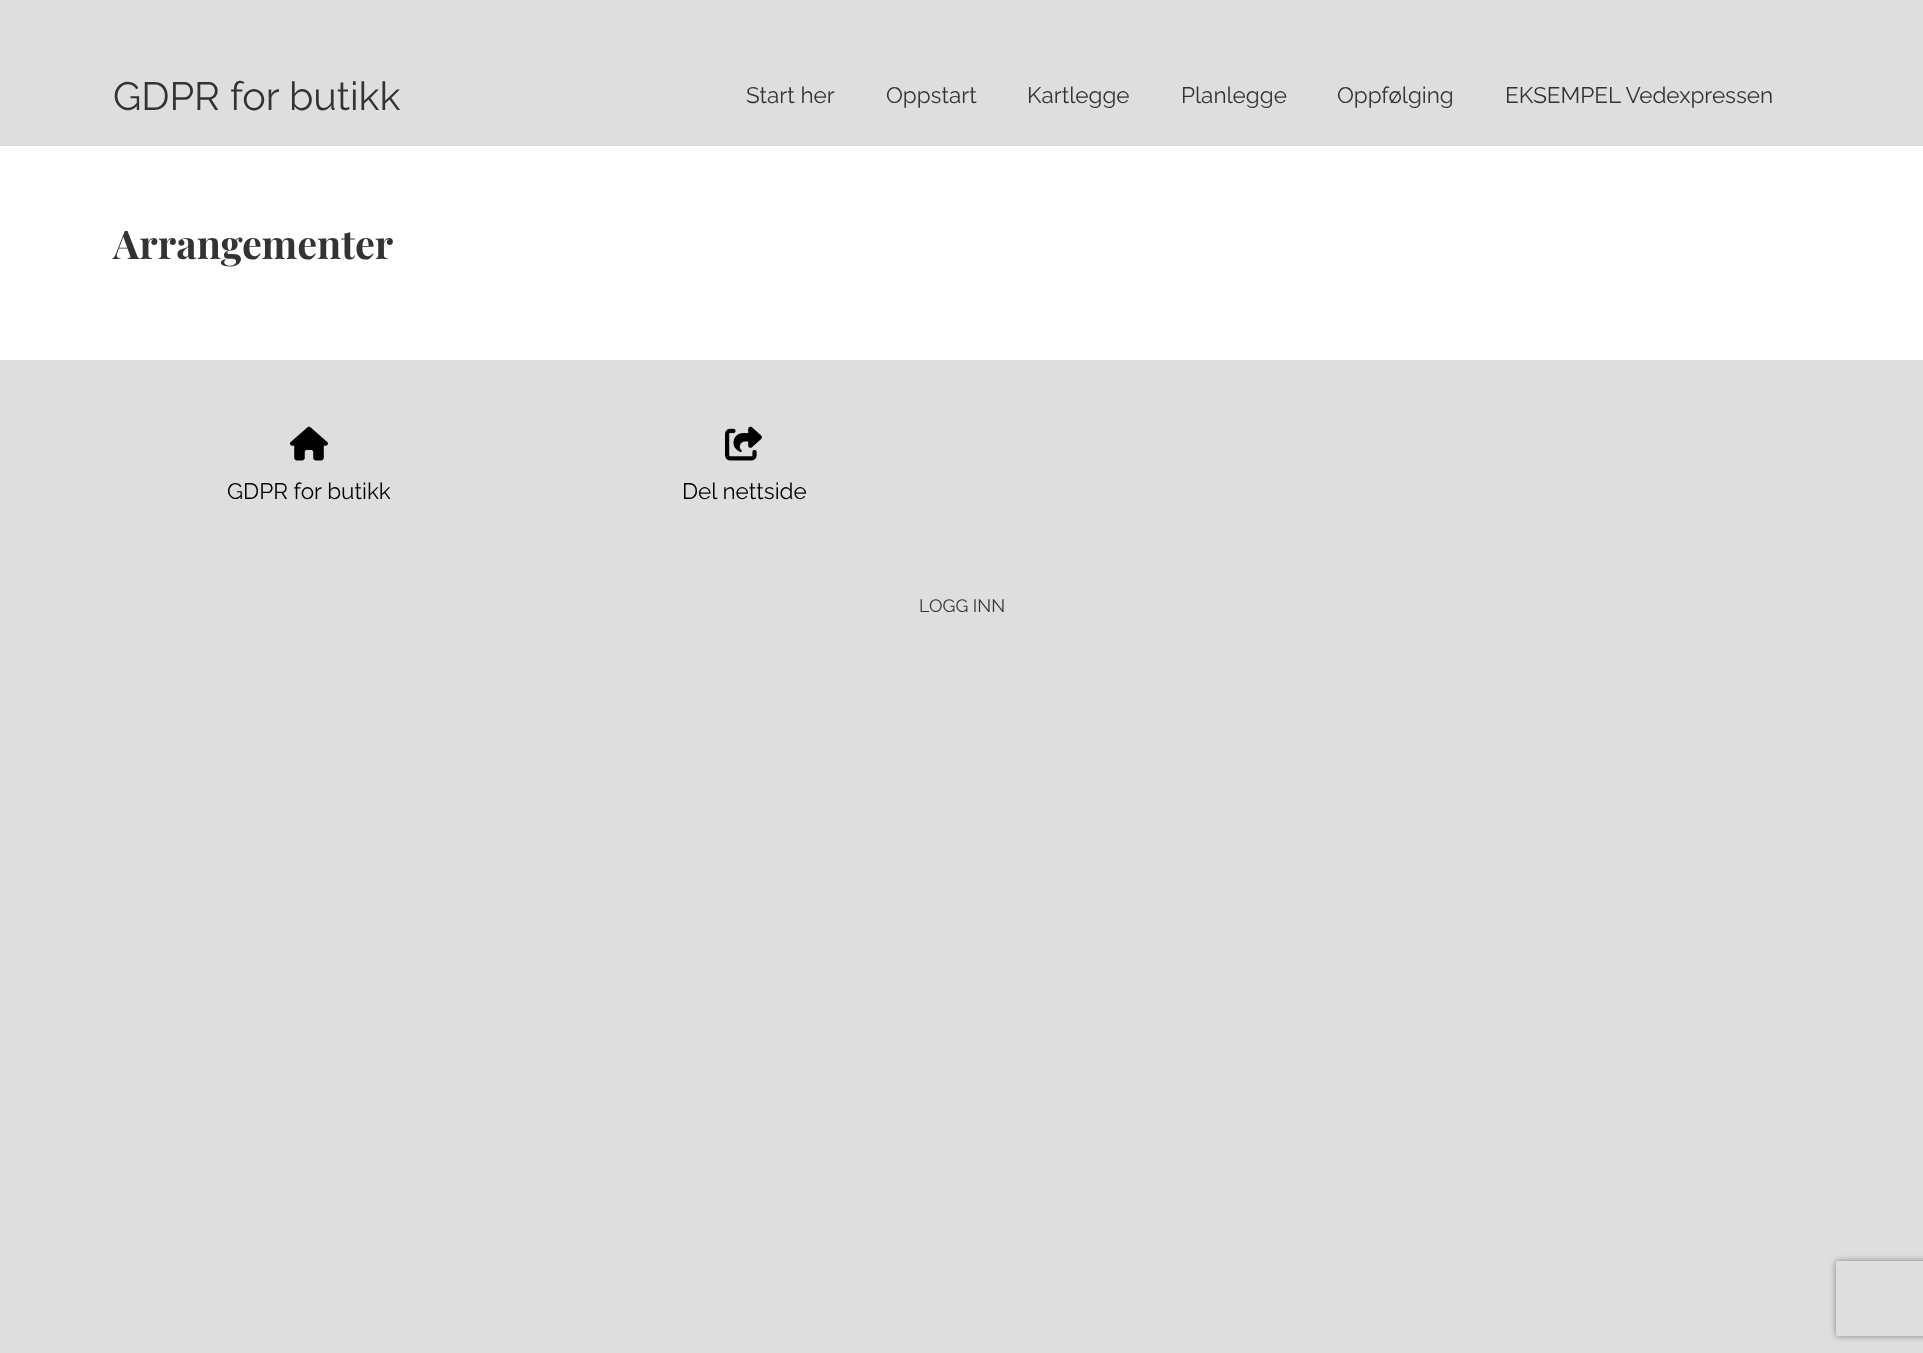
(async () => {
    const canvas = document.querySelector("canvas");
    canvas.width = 1923;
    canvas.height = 1353;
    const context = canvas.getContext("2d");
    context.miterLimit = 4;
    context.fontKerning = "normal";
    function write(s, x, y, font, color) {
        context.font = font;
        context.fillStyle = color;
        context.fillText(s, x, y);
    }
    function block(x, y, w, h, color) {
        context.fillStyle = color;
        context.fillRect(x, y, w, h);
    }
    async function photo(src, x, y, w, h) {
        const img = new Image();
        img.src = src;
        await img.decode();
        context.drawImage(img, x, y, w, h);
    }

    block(0, 0, 1923, 1353, "rgb(222, 222, 222)");
    write("GDPR for butikk", 113, 110, "39.5px Raleway", "rgb(51, 51, 51)");
    write("Start her", 746, 103, "22.5px Raleway", "rgb(51, 51, 51)");
    write("Oppstart", 886, 103, "22.5px Raleway", "rgb(51, 51, 51)");
    write("Kartlegge", 1027, 103, "22.5px Raleway", "rgb(51, 51, 51)");
    write("Planlegge", 1181, 103, "22.5px Raleway", "rgb(51, 51, 51)");
    write("Oppfølging", 1337, 103, "22.5px Raleway", "rgb(51, 51, 51)");
    write("EKSEMPEL Vedexpressen", 1505, 103, "22.5px Raleway", "rgb(51, 51, 51)");
    block(0, 146, 1923, 214, "rgb(255, 255, 255)");
    write("Arrangementer", 113, 259, "bold 39.5px Playfair Display", "rgb(51, 51, 51)");
    await photo("media/1.png", 290, 426, 38, 35);
    write("GDPR for butikk", 227, 499, "22.5px Raleway", "rgb(0, 0, 0)");
    await photo("media/2.png", 725, 426, 37, 35);
    write("Del nettside", 682, 499, "22.5px Raleway", "rgb(0, 0, 0)");
    write("LOGG INN", 919, 612, "18px Raleway", "rgb(51, 51, 51)");
    context.save();
    context.beginPath();
    context.moveTo(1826, 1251);
    context.lineTo(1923, 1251);
    context.lineTo(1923, 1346);
    context.lineTo(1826, 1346);
    context.closePath();
    context.moveTo(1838.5, 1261);
    context.lineTo(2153.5, 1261);
    context.bezierCurveTo(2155, 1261, 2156, 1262, 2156, 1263.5);
    context.lineTo(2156, 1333.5);
    context.bezierCurveTo(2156, 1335, 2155, 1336, 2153.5, 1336);
    context.lineTo(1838.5, 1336);
    context.bezierCurveTo(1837, 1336, 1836, 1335, 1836, 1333.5);
    context.lineTo(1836, 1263.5);
    context.bezierCurveTo(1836, 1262, 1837, 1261, 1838.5, 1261);
    context.closePath();
    context.clip("evenodd");
    context.fillStyle = "rgb(128, 128, 128)";
    context.filter = "blur(3px)";
    context.beginPath();
    context.roundRect(1836, 1261, 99, 75, 2.5);
    context.fill();
    context.filter = "none";
    context.restore();
})();
